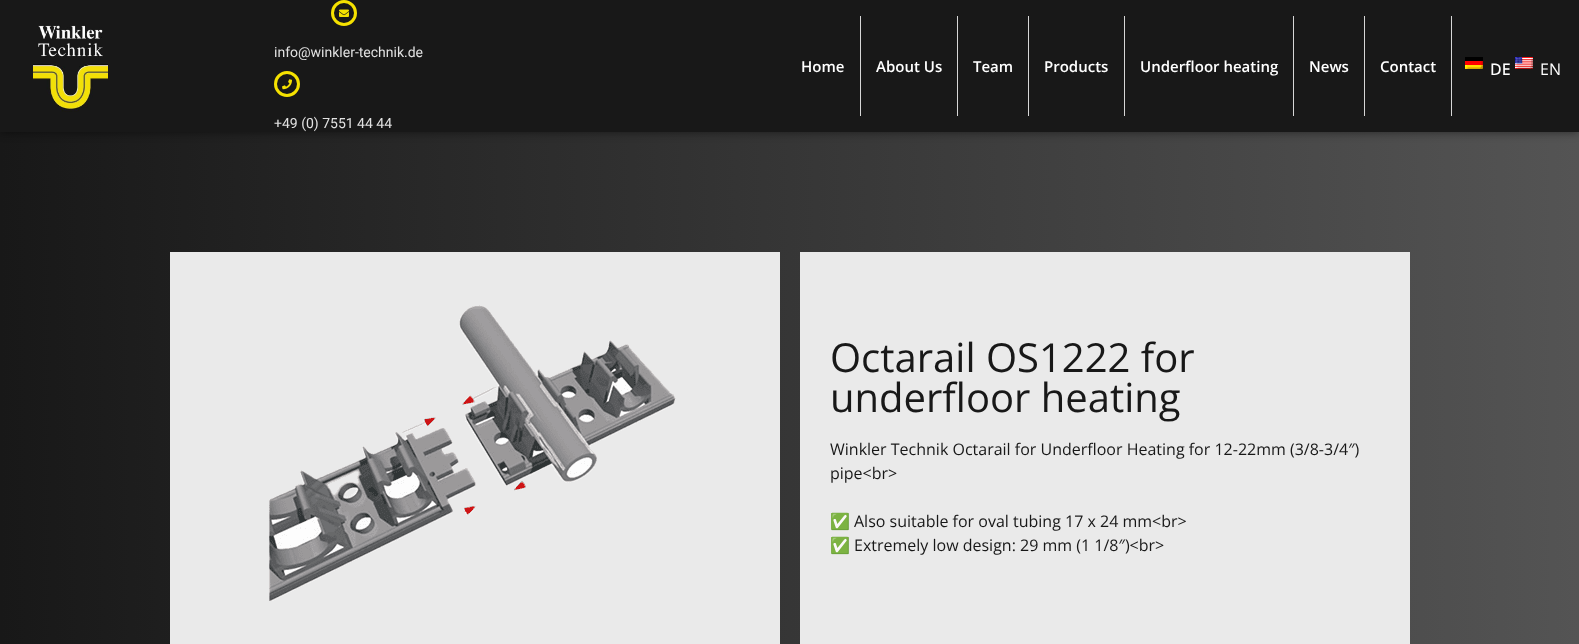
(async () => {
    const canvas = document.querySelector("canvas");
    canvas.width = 1579;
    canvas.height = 644;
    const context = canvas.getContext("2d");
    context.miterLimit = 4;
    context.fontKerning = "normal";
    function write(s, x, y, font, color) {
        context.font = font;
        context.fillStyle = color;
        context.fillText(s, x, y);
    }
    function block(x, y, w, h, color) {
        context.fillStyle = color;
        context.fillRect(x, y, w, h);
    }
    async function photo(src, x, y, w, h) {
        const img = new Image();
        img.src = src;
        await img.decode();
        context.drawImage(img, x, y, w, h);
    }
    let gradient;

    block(0, 0, 1579, 644, "rgb(255, 255, 255)");
    gradient = context.createLinearGradient(0, 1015, 1579, 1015);
    gradient.addColorStop(0, "rgb(24, 24, 24)");
    gradient.addColorStop(1, "rgb(84, 84, 84)");
    context.fillStyle = gradient;
    context.fillRect(0, 132, 1579, 512);
    context.fillStyle = "rgba(0, 0, 0, 0.5)";
    context.filter = "blur(5px)";
    context.beginPath();
    context.rect(0, 0, 1579, 132);
    context.fill();
    context.filter = "none";
    block(0, 0, 1579, 132, "rgb(24, 24, 24)");
    await photo("media/1.png", 33, 25, 75, 87);
    context.beginPath();
    context.arc(344, 13, 11.5, 0, Math.PI * 2);
    context.strokeStyle = "rgb(245, 225, 0)";
    context.lineWidth = 3;
    context.stroke();
    await photo("media/2.png", 339, 9, 10, 8);
    write("info@winkler-technik.de", 274, 57, "14px Roboto", "rgb(225, 225, 225)");
    context.beginPath();
    context.arc(287, 84, 11.5, 0, Math.PI * 2);
    context.stroke();
    await photo("media/3.png", 282, 79, 10, 11);
    write("+49 (0) 7551 44 44", 274, 128, "14px Roboto", "rgb(225, 225, 225)");
    block(860, 16, 1, 100, "rgb(214, 214, 214)");
    write("Home", 801, 72, "600 15px Open Sans", "rgb(255, 255, 255)");
    block(957, 16, 1, 100, "rgb(214, 214, 214)");
    write("About Us", 876, 72, "600 15px Open Sans", "rgb(255, 255, 255)");
    block(1028, 16, 1, 100, "rgb(214, 214, 214)");
    write("Team", 973, 72, "600 15px Open Sans", "rgb(255, 255, 255)");
    block(1124, 16, 1, 100, "rgb(214, 214, 214)");
    write("Products", 1044, 72, "600 15px Open Sans", "rgb(255, 255, 255)");
    block(1293, 16, 1, 100, "rgb(214, 214, 214)");
    write("Underfloor heating", 1140, 72, "600 15px Open Sans", "rgb(255, 255, 255)");
    block(1364, 16, 1, 100, "rgb(214, 214, 214)");
    write("News", 1309, 72, "600 15px Open Sans", "rgb(255, 255, 255)");
    block(1451, 16, 1, 100, "rgb(214, 214, 214)");
    write("Contact", 1380, 72, "600 15px Open Sans", "rgb(255, 255, 255)");
    await photo("media/4.png", 1465, 57, 18, 12);
    write("DE", 1490, 75, "500 16px Open Sans", "rgb(255, 255, 255)");
    await photo("media/5.png", 1515, 57, 18, 12);
    write("EN", 1540, 75, "16px Open Sans", "rgb(255, 255, 255)");
    block(170, 252, 610, 392, "rgb(234, 234, 234)");
    await photo("media/6.png", 269, 305, 407, 296);
    block(800, 252, 610, 392, "rgb(234, 234, 234)");
    write("Octarail OS1222 for", 830, 372, "40px Open Sans", "rgb(24, 24, 24)");
    write("underfloor heating", 830, 412, "40px Open Sans", "rgb(24, 24, 24)");
    write("Winkler Technik Octarail for Underfloor Heating for 12-22mm (3/8-3/4″)", 830, 455, "16px Open Sans", "rgb(24, 24, 24)");
    write("pipe<br>", 830, 479, "16px Open Sans", "rgb(24, 24, 24)");
    write("✅", 830, 527, "16px Noto Color Emoji", "rgb(24, 24, 24)");
    write("Also suitable for oval tubing 17 x 24 mm<br>", 854, 527, "16px Open Sans", "rgb(24, 24, 24)");
    write("✅", 830, 551, "16px Noto Color Emoji", "rgb(24, 24, 24)");
    write("Extremely low design: 29 mm (1 1/8″)<br>", 854, 551, "16px Open Sans", "rgb(24, 24, 24)");
})();
